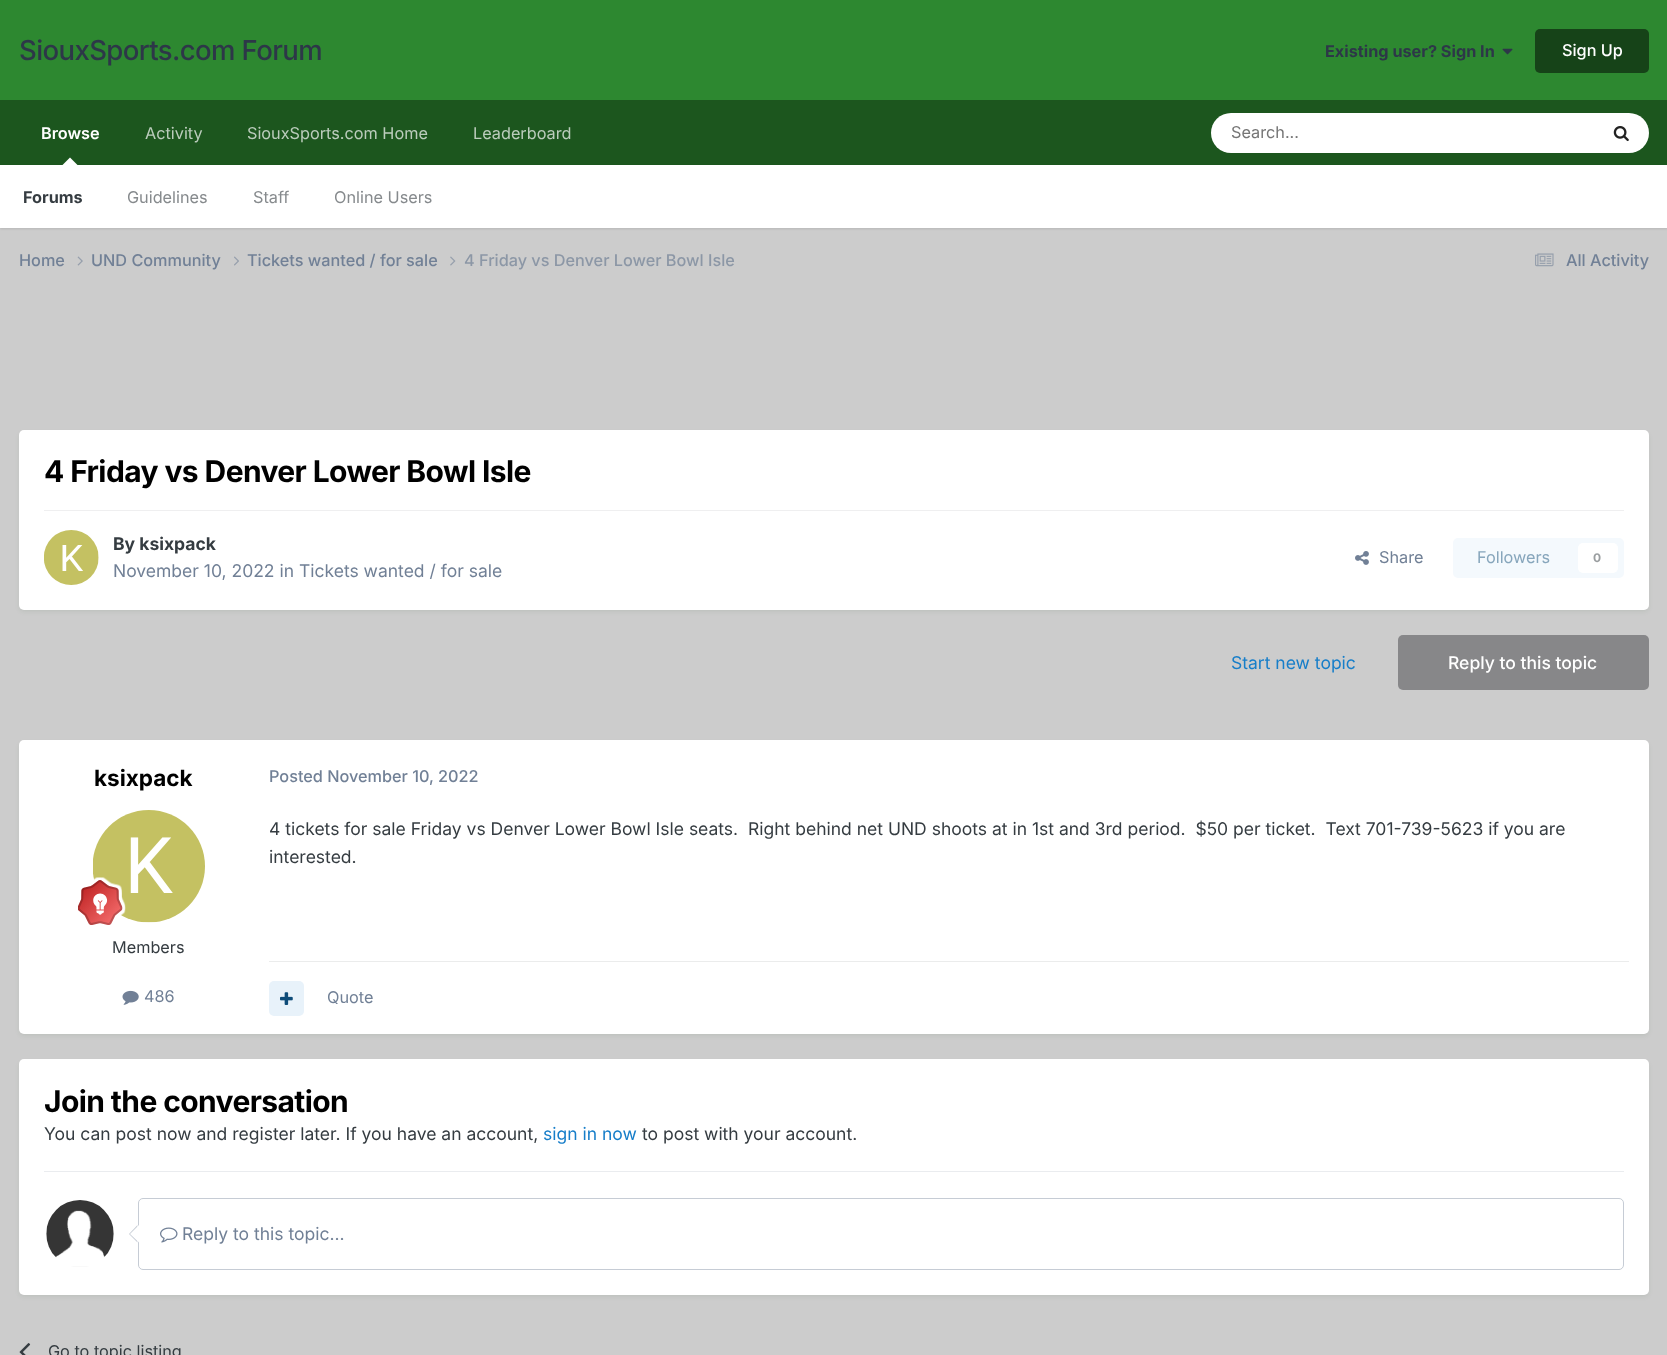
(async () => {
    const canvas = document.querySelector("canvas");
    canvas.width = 1667;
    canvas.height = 1355;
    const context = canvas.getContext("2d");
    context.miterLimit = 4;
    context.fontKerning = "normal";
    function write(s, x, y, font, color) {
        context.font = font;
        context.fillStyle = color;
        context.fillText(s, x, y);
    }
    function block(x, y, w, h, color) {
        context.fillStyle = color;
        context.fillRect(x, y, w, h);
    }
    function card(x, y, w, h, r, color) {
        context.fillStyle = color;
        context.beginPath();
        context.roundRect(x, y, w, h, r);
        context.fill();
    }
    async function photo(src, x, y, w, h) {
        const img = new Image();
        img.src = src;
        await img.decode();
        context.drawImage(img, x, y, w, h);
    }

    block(0, 0, 1667, 1355, "rgb(204, 204, 204)");
    block(0, 0, 1667, 100, "rgb(45, 136, 48)");
    context.letterSpacing = "-0.6px";
    write("SiouxSports.com Forum", 19, 60, "500 27.5px Inter", "rgb(45, 55, 72)");
    context.letterSpacing = "0px";
    write("Existing user? Sign In", 1325, 57, "bold 16.25px Inter", "rgb(45, 55, 72)");
    await photo("media/1.png", 1502, 48, 11, 7);
    card(1535, 29, 114, 44, 5, "rgb(22, 67, 24)");
    write("Sign Up", 1562, 56, "500 16.25px Inter", "rgb(255, 255, 255)");
    block(0, 100, 1667, 65, "rgb(28, 86, 30)");
    write("Activity", 145, 139, "16.25px Inter", "rgb(187, 204, 188)");
    write("SiouxSports.com Home", 247, 139, "16.25px Inter", "rgb(187, 204, 188)");
    write("Browse", 41, 139, "600 16.25px Inter", "rgb(255, 255, 255)");
    context.fillStyle = "rgba(0, 0, 0, 0.1)";
    context.filter = "blur(1px)";
    context.beginPath();
    context.rect(0, 166, 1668, 63);
    context.fill();
    context.filter = "none";
    context.fillStyle = "rgb(255, 255, 255)";
    context.beginPath();
    context.moveTo(77.5, 165);
    context.lineTo(62.5, 165);
    context.lineTo(70, 157.5);
    context.closePath();
    context.fill();
    block(0, 165, 1667, 63, "rgb(255, 255, 255)");
    write("Forums", 23, 203, "bold 16.25px Inter", "rgb(53, 60, 65)");
    write("Guidelines", 127, 203, "16.25px Inter", "rgb(134, 138, 141)");
    write("Staff", 253, 203, "16.25px Inter", "rgb(134, 138, 141)");
    write("Online Users", 334, 203, "16.25px Inter", "rgb(134, 138, 141)");
    write("Leaderboard", 473, 139, "16.25px Inter", "rgb(187, 204, 188)");
    card(1211, 113, 438, 40, 20, "rgb(255, 255, 255)");
    write("Search...", 1231, 138, "16.25px Inter", "rgb(117, 117, 117)");
    await photo("media/2.png", 1613, 126, 16, 16);
    write("Home", 19, 266, "500 16.25px Inter", "rgb(113, 128, 150)");
    await photo("media/3.png", 77, 256, 6, 10);
    write("UND Community", 91, 266, "500 16.25px Inter", "rgb(113, 128, 150)");
    await photo("media/4.png", 234, 256, 5, 10);
    write("Tickets wanted / for sale", 247, 266, "500 16.25px Inter", "rgb(113, 128, 150)");
    await photo("media/5.png", 450, 256, 6, 10);
    write("4 Friday vs Denver Lower Bowl Isle", 464, 266, "500 16.25px Inter", "rgb(140, 151, 166)");
    await photo("media/6.png", 1535, 253, 19, 14);
    write("All Activity", 1566, 266, "500 16.25px Inter", "rgb(113, 128, 150)");
    context.fillStyle = "rgba(22, 67, 24, 0.1)";
    context.filter = "blur(2.5px)";
    context.beginPath();
    context.roundRect(20, 434, 1628, 177, 4);
    context.fill();
    context.filter = "none";
    card(19, 430, 1630, 180, 5, "rgb(255, 255, 255)");
    context.letterSpacing = "-0.6px";
    write("4 Friday vs Denver Lower Bowl Isle", 44, 482, "bold 30px Inter", "rgb(0, 0, 0)");
    block(44, 510, 1580, 1, "rgb(239, 239, 240)");
    await photo("media/7.png", 44, 530, 55, 55);
    context.letterSpacing = "0px";
    write("By ksixpack", 113, 550, "bold 17.5px Inter", "rgb(53, 60, 65)");
    write("November 10, 2022 in Tickets wanted / for sale", 113, 577, "17.5px Inter", "rgb(113, 128, 150)");
    await photo("media/8.png", 1355, 551, 14, 14);
    write("Share", 1379, 563, "16.25px Inter", "rgb(113, 128, 150)");
    card(1453, 538, 171, 40, 5, "rgb(244, 249, 253)");
    write("Followers", 1477, 563, "16.25px Inter", "rgb(135, 166, 188)");
    card(1578, 543, 40, 30, 5, "rgb(255, 255, 255)");
    write("0", 1593, 562, "bold 12px Inter", "rgb(154, 158, 160)");
    write("Start new topic", 1231, 669, "17.5px Inter", "rgb(23, 126, 201)");
    card(1398, 635, 251, 55, 5, "rgb(135, 135, 137)");
    write("Reply to this topic", 1448, 669, "500 17.5px Inter", "rgb(255, 255, 255)");
    context.fillStyle = "rgba(22, 67, 24, 0.1)";
    context.filter = "blur(2.5px)";
    context.beginPath();
    context.roundRect(20, 744, 1628, 291, 4);
    context.fill();
    context.filter = "none";
    card(19, 740, 1630, 294, 5, "rgb(255, 255, 255)");
    write("ksixpack", 94, 786, "bold 22.5px Inter", "rgb(0, 0, 0)");
    await photo("media/9.png", 93, 810, 112, 113);
    await photo("media/10.png", 78, 877, 48, 48);
    write("Members", 112, 953, "16.25px Inter", "rgb(53, 60, 65)");
    await photo("media/11.png", 122, 990, 17, 15);
    write("486", 144, 1002, "16.25px Inter", "rgb(113, 128, 150)");
    write("Posted November 10, 2022", 269, 782, "500 16.25px Inter", "rgb(113, 128, 150)");
    write("4 tickets for sale Friday vs Denver Lower Bowl Isle seats.  Right behind net UND shoots at in 1st and 3rd period.  $50 per ticket.  Text 701-739-5623 if you are", 269, 835, "17.5px Inter", "rgb(53, 60, 65)");
    write("interested.", 269, 863, "17.5px Inter", "rgb(53, 60, 65)");
    block(269, 961, 1360, 1, "rgb(235, 236, 236)");
    card(269, 981, 35, 35, 5, "rgb(232, 242, 250)");
    await photo("media/12.png", 280, 992, 13, 13);
    write("Quote", 327, 1003, "16.25px Inter", "rgb(113, 128, 150)");
    context.fillStyle = "rgba(22, 67, 24, 0.1)";
    context.filter = "blur(2.5px)";
    context.beginPath();
    context.roundRect(20, 1063, 1628, 233, 4);
    context.fill();
    context.filter = "none";
    card(19, 1059, 1630, 236, 5, "rgb(255, 255, 255)");
    block(44, 1171, 1580, 1, "rgb(234, 236, 239)");
    context.letterSpacing = "-0.6px";
    write("Join the conversation", 44, 1112, "bold 30px Inter", "rgb(0, 0, 0)");
    context.letterSpacing = "0px";
    write("You can post now and register later. If you have an account,", 44, 1140, "17.5px Inter", "rgb(53, 60, 65)");
    write("sign in now", 543, 1140, "17.5px Inter", "rgb(23, 126, 201)");
    write("to post with your account.", 642, 1140, "17.5px Inter", "rgb(53, 60, 65)");
    await photo("media/13.png", 46, 1200, 68, 67);
    context.beginPath();
    context.roundRect(138.5, 1198.5, 1485, 71, 4.5);
    context.strokeStyle = "rgb(198, 204, 213)";
    context.stroke();
    context.fillStyle = "rgb(198, 204, 213)";
    context.beginPath();
    context.moveTo(137.5, 1225);
    context.lineTo(137.5, 1242.5);
    context.lineTo(129, 1234);
    context.closePath();
    context.fill();
    context.fillStyle = "rgb(255, 255, 255)";
    context.beginPath();
    context.moveTo(139, 1225);
    context.lineTo(139, 1242.5);
    context.lineTo(130, 1234);
    context.closePath();
    context.fill();
    await photo("media/14.png", 160, 1227, 18, 16);
    write("Reply to this topic...", 182, 1240, "17.5px Inter", "rgb(113, 128, 150)");
    await photo("media/15.png", 19, 1343, 12, 12);
    write("Go to topic listing", 48, 1357, "16.25px Inter", "rgb(53, 60, 65)");
})();
